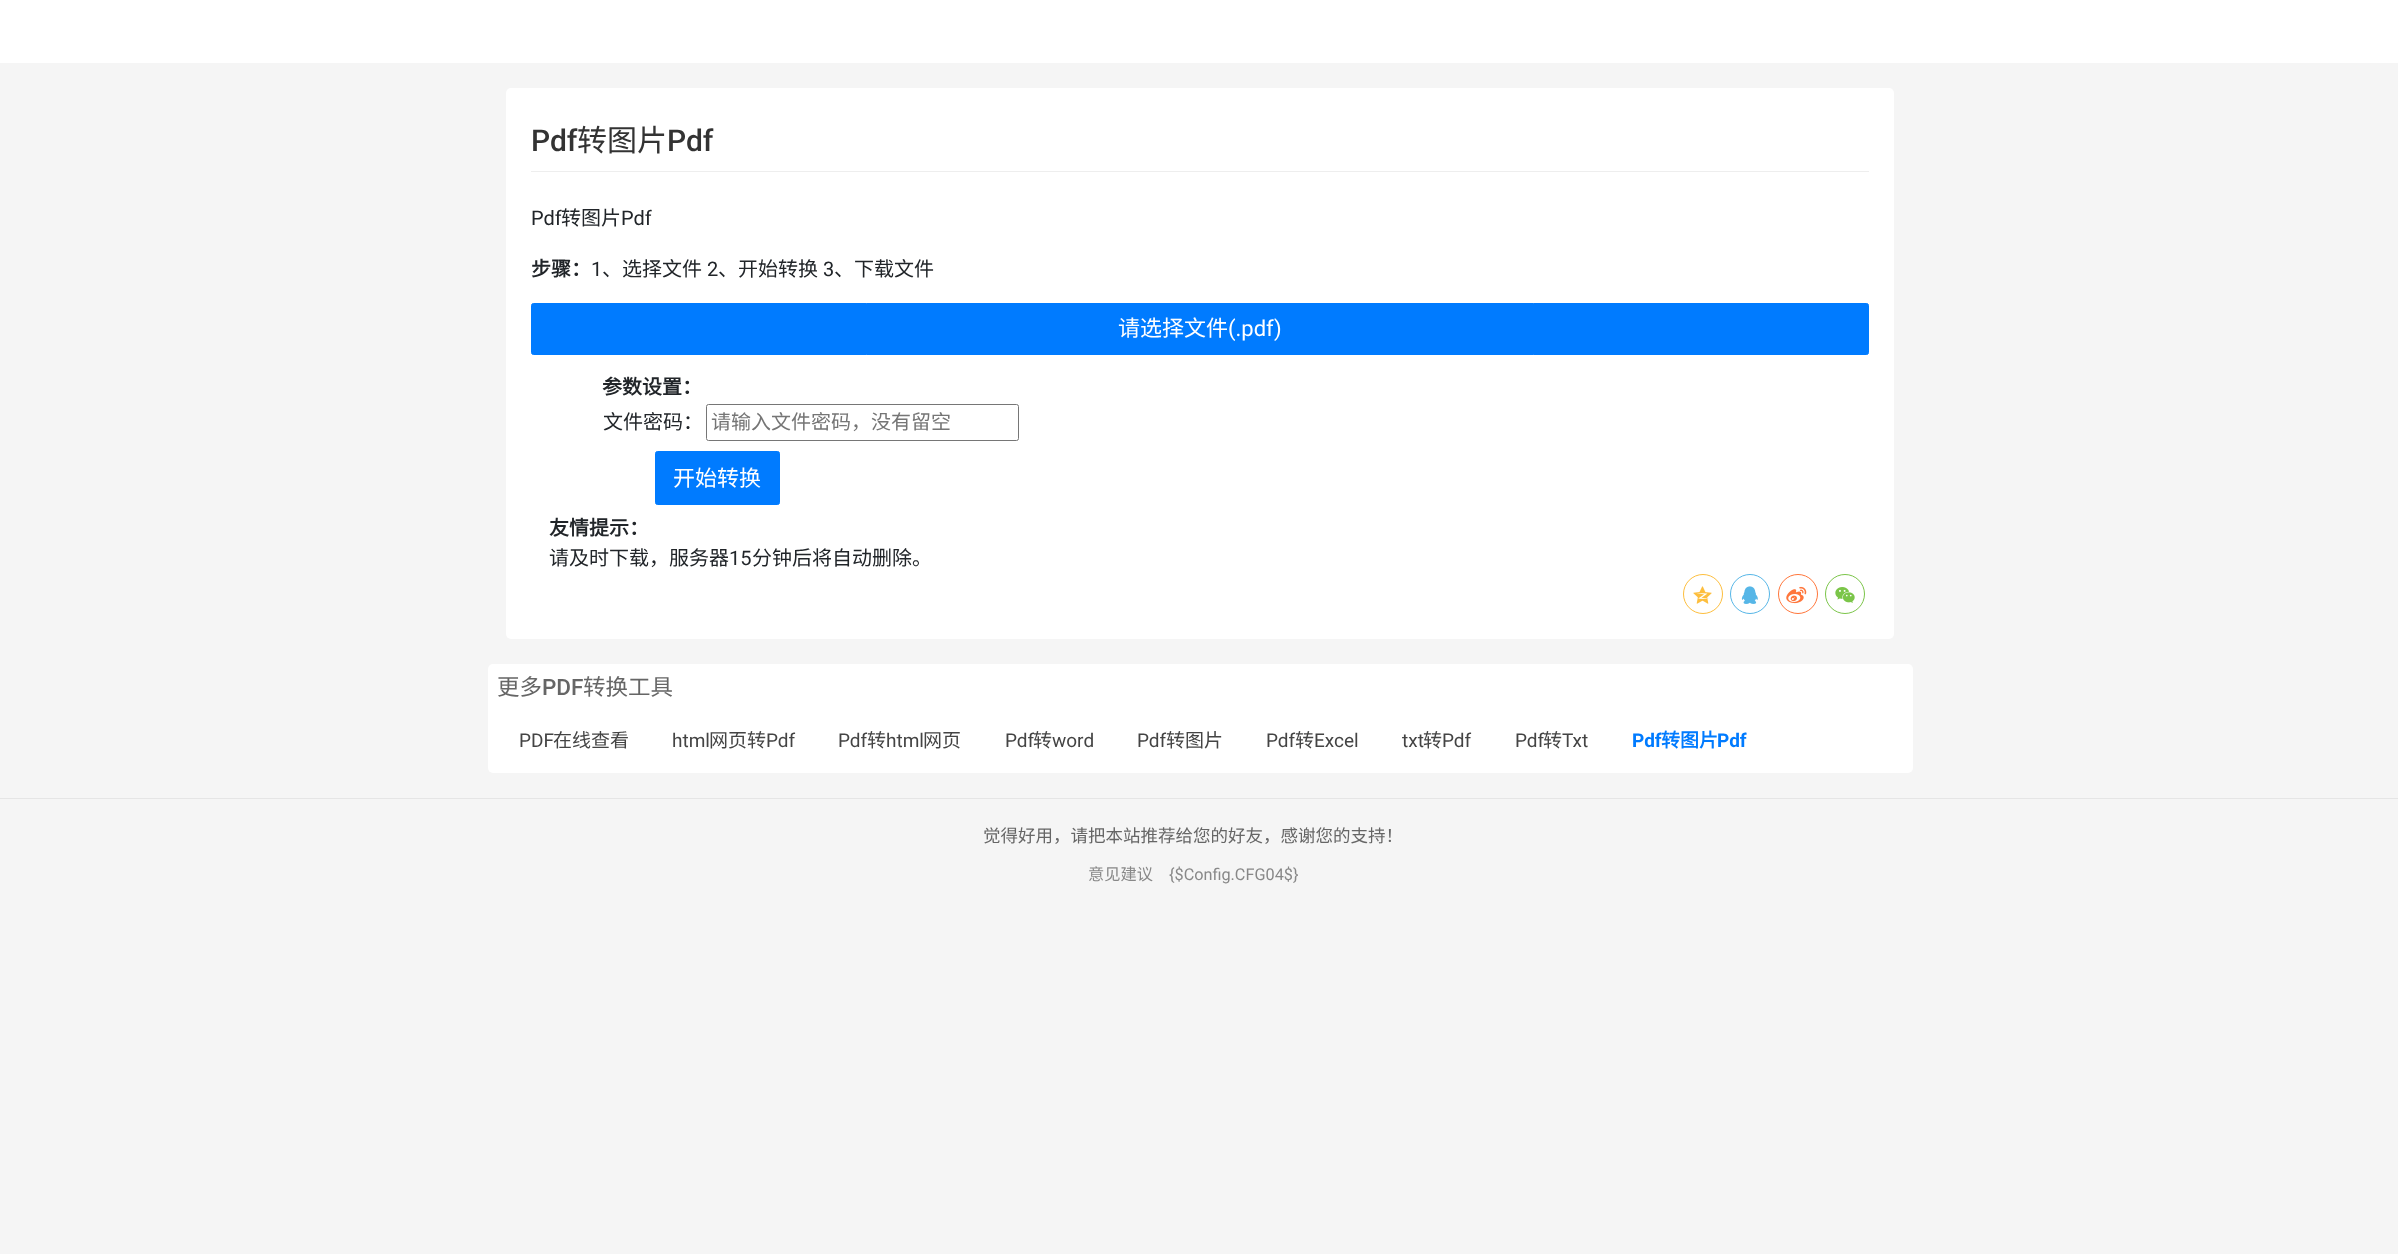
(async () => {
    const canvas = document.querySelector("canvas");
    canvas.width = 2398;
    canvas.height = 1254;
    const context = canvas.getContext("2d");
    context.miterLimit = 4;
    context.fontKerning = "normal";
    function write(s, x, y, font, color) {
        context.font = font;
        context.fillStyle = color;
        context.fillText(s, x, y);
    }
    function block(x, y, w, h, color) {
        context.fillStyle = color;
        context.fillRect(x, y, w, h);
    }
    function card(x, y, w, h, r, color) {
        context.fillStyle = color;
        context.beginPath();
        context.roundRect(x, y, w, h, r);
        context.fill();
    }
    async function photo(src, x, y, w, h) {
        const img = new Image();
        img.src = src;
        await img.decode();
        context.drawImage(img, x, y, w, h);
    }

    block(0, 0, 2398, 1254, "rgb(245, 245, 245)");
    block(0, 0, 2398, 63, "rgb(255, 255, 255)");
    card(506, 88, 1388, 551, 5, "rgb(255, 255, 255)");
    block(531, 171, 1338, 1, "rgb(238, 238, 238)");
    write("Pdf", 531, 151, "500 30px Roboto", "rgb(51, 51, 51)");
    write("转图片", 577, 151, "30px Noto Sans CJK SC", "rgb(51, 51, 51)");
    write("Pdf", 667, 151, "500 30px Roboto", "rgb(51, 51, 51)");
    write("Pdf", 531, 225, "20px Roboto", "rgb(33, 37, 41)");
    write("转图片", 561, 225, "20px Noto Sans CJK SC", "rgb(33, 37, 41)");
    write("Pdf", 621, 225, "20px Roboto", "rgb(33, 37, 41)");
    write("步骤：", 531, 276, "bold 20px Noto Sans CJK SC", "rgb(33, 37, 41)");
    write("1", 591, 276, "20px Roboto", "rgb(33, 37, 41)");
    write("、选择文件", 602, 276, "20px Noto Sans CJK SC", "rgb(33, 37, 41)");
    write("2", 707, 276, "20px Roboto", "rgb(33, 37, 41)");
    write("、开始转换", 718, 276, "20px Noto Sans CJK SC", "rgb(33, 37, 41)");
    write("3", 823, 276, "20px Roboto", "rgb(33, 37, 41)");
    write("、下载文件", 834, 276, "20px Noto Sans CJK SC", "rgb(33, 37, 41)");
    context.fillStyle = "rgb(0, 123, 255)";
    context.beginPath();
    context.roundRect(531.5, 303.5, 1337, 51, 2);
    context.fill();
    context.strokeStyle = "rgb(0, 123, 255)";
    context.stroke();
    write("请选择文件", 1118, 336, "22px Noto Sans CJK SC", "rgb(255, 255, 255)");
    write("(.pdf)", 1228, 336, "22px Roboto", "rgb(255, 255, 255)");
    write("参数设置：", 602, 394, "bold 20px Noto Sans CJK SC", "rgb(33, 37, 41)");
    write("文件密码：", 603, 429, "20px Noto Sans CJK SC", "rgb(33, 37, 41)");
    context.beginPath();
    context.roundRect(706.5, 404.5, 312, 36, 2);
    context.strokeStyle = "rgb(118, 118, 118)";
    context.stroke();
    write("请输入文件密码，没有留空", 711, 429, "20px Noto Sans CJK SC", "rgb(117, 117, 117)");
    context.fillStyle = "rgb(0, 123, 255)";
    context.beginPath();
    context.roundRect(655.5, 451.5, 124, 53, 2);
    context.fill();
    context.strokeStyle = "rgb(0, 123, 255)";
    context.stroke();
    write("开始转换", 673, 486, "22px Noto Sans CJK SC", "rgb(255, 255, 255)");
    write("友情提示：", 549, 535, "bold 20px Noto Sans CJK SC", "rgb(33, 37, 41)");
    write("请及时下载，服务器", 549, 565, "20px Noto Sans CJK SC", "rgb(33, 37, 41)");
    write("15", 729, 565, "20px Roboto", "rgb(33, 37, 41)");
    write("分钟后将自动删除。", 752, 565, "20px Noto Sans CJK SC", "rgb(33, 37, 41)");
    context.beginPath();
    context.arc(1703, 594, 19.5, 0, Math.PI * 2);
    context.strokeStyle = "rgb(253, 190, 61)";
    context.stroke();
    await photo("media/1.png", 1693, 586, 19, 18);
    context.beginPath();
    context.arc(1750, 594, 19.5, 0, Math.PI * 2);
    context.strokeStyle = "rgb(86, 182, 231)";
    context.stroke();
    await photo("media/2.png", 1741, 586, 17, 18);
    context.beginPath();
    context.arc(1798, 594, 19.5, 0, Math.PI * 2);
    context.strokeStyle = "rgb(255, 118, 59)";
    context.stroke();
    await photo("media/3.png", 1786, 586, 21, 18);
    context.beginPath();
    context.arc(1845, 594, 19.5, 0, Math.PI * 2);
    context.strokeStyle = "rgb(123, 197, 73)";
    context.stroke();
    await photo("media/4.png", 1835, 587, 20, 16);
    card(488, 664, 1425, 109, 5, "rgb(255, 255, 255)");
    write("更多", 497, 695, "22.5px Noto Sans CJK SC", "rgb(102, 102, 102)");
    write("PDF", 542, 695, "500 22.5px Roboto", "rgb(102, 102, 102)");
    write("转换工具", 583, 695, "22.5px Noto Sans CJK SC", "rgb(102, 102, 102)");
    write("PDF", 519, 747, "19px Roboto", "rgb(68, 68, 68)");
    write("在线查看", 553, 747, "19px Noto Sans CJK SC", "rgb(68, 68, 68)");
    write("html", 672, 747, "19px Roboto", "rgb(68, 68, 68)");
    write("网页转", 709, 747, "19px Noto Sans CJK SC", "rgb(68, 68, 68)");
    write("Pdf", 766, 747, "19px Roboto", "rgb(68, 68, 68)");
    write("Pdf", 838, 747, "19px Roboto", "rgb(68, 68, 68)");
    write("转", 867, 747, "19px Noto Sans CJK SC", "rgb(68, 68, 68)");
    write("html", 886, 747, "19px Roboto", "rgb(68, 68, 68)");
    write("网页", 923, 747, "19px Noto Sans CJK SC", "rgb(68, 68, 68)");
    write("Pdf", 1005, 747, "19px Roboto", "rgb(68, 68, 68)");
    write("转", 1033, 747, "19px Noto Sans CJK SC", "rgb(68, 68, 68)");
    write("word", 1052, 747, "19px Roboto", "rgb(68, 68, 68)");
    write("Pdf", 1137, 747, "19px Roboto", "rgb(68, 68, 68)");
    write("转图片", 1166, 747, "19px Noto Sans CJK SC", "rgb(68, 68, 68)");
    write("Pdf", 1266, 747, "19px Roboto", "rgb(68, 68, 68)");
    write("转", 1295, 747, "19px Noto Sans CJK SC", "rgb(68, 68, 68)");
    write("Excel", 1314, 747, "19px Roboto", "rgb(68, 68, 68)");
    write("txt", 1402, 747, "19px Roboto", "rgb(68, 68, 68)");
    write("转", 1423, 747, "19px Noto Sans CJK SC", "rgb(68, 68, 68)");
    write("Pdf", 1442, 747, "19px Roboto", "rgb(68, 68, 68)");
    write("Pdf", 1515, 747, "19px Roboto", "rgb(68, 68, 68)");
    write("转", 1543, 747, "19px Noto Sans CJK SC", "rgb(68, 68, 68)");
    write("Txt", 1562, 747, "19px Roboto", "rgb(68, 68, 68)");
    write("Pdf", 1632, 747, "bold 19px Roboto", "rgb(0, 123, 255)");
    write("转图片", 1661, 747, "bold 19px Noto Sans CJK SC", "rgb(0, 123, 255)");
    write("Pdf", 1717, 747, "bold 19px Roboto", "rgb(0, 123, 255)");
    block(0, 798, 2398, 1, "rgb(229, 229, 229)");
    write("觉得好用，请把本站推荐给您的好友，感谢您的支持！", 983, 842, "17.5px Noto Sans CJK SC", "rgb(102, 102, 102)");
    write("意见建议", 1088, 880, "16.25px Noto Sans CJK SC", "rgb(136, 136, 136)");
    write("{$Config.CFG04$}", 1169, 880, "16.25px Roboto", "rgb(136, 136, 136)");
})();
